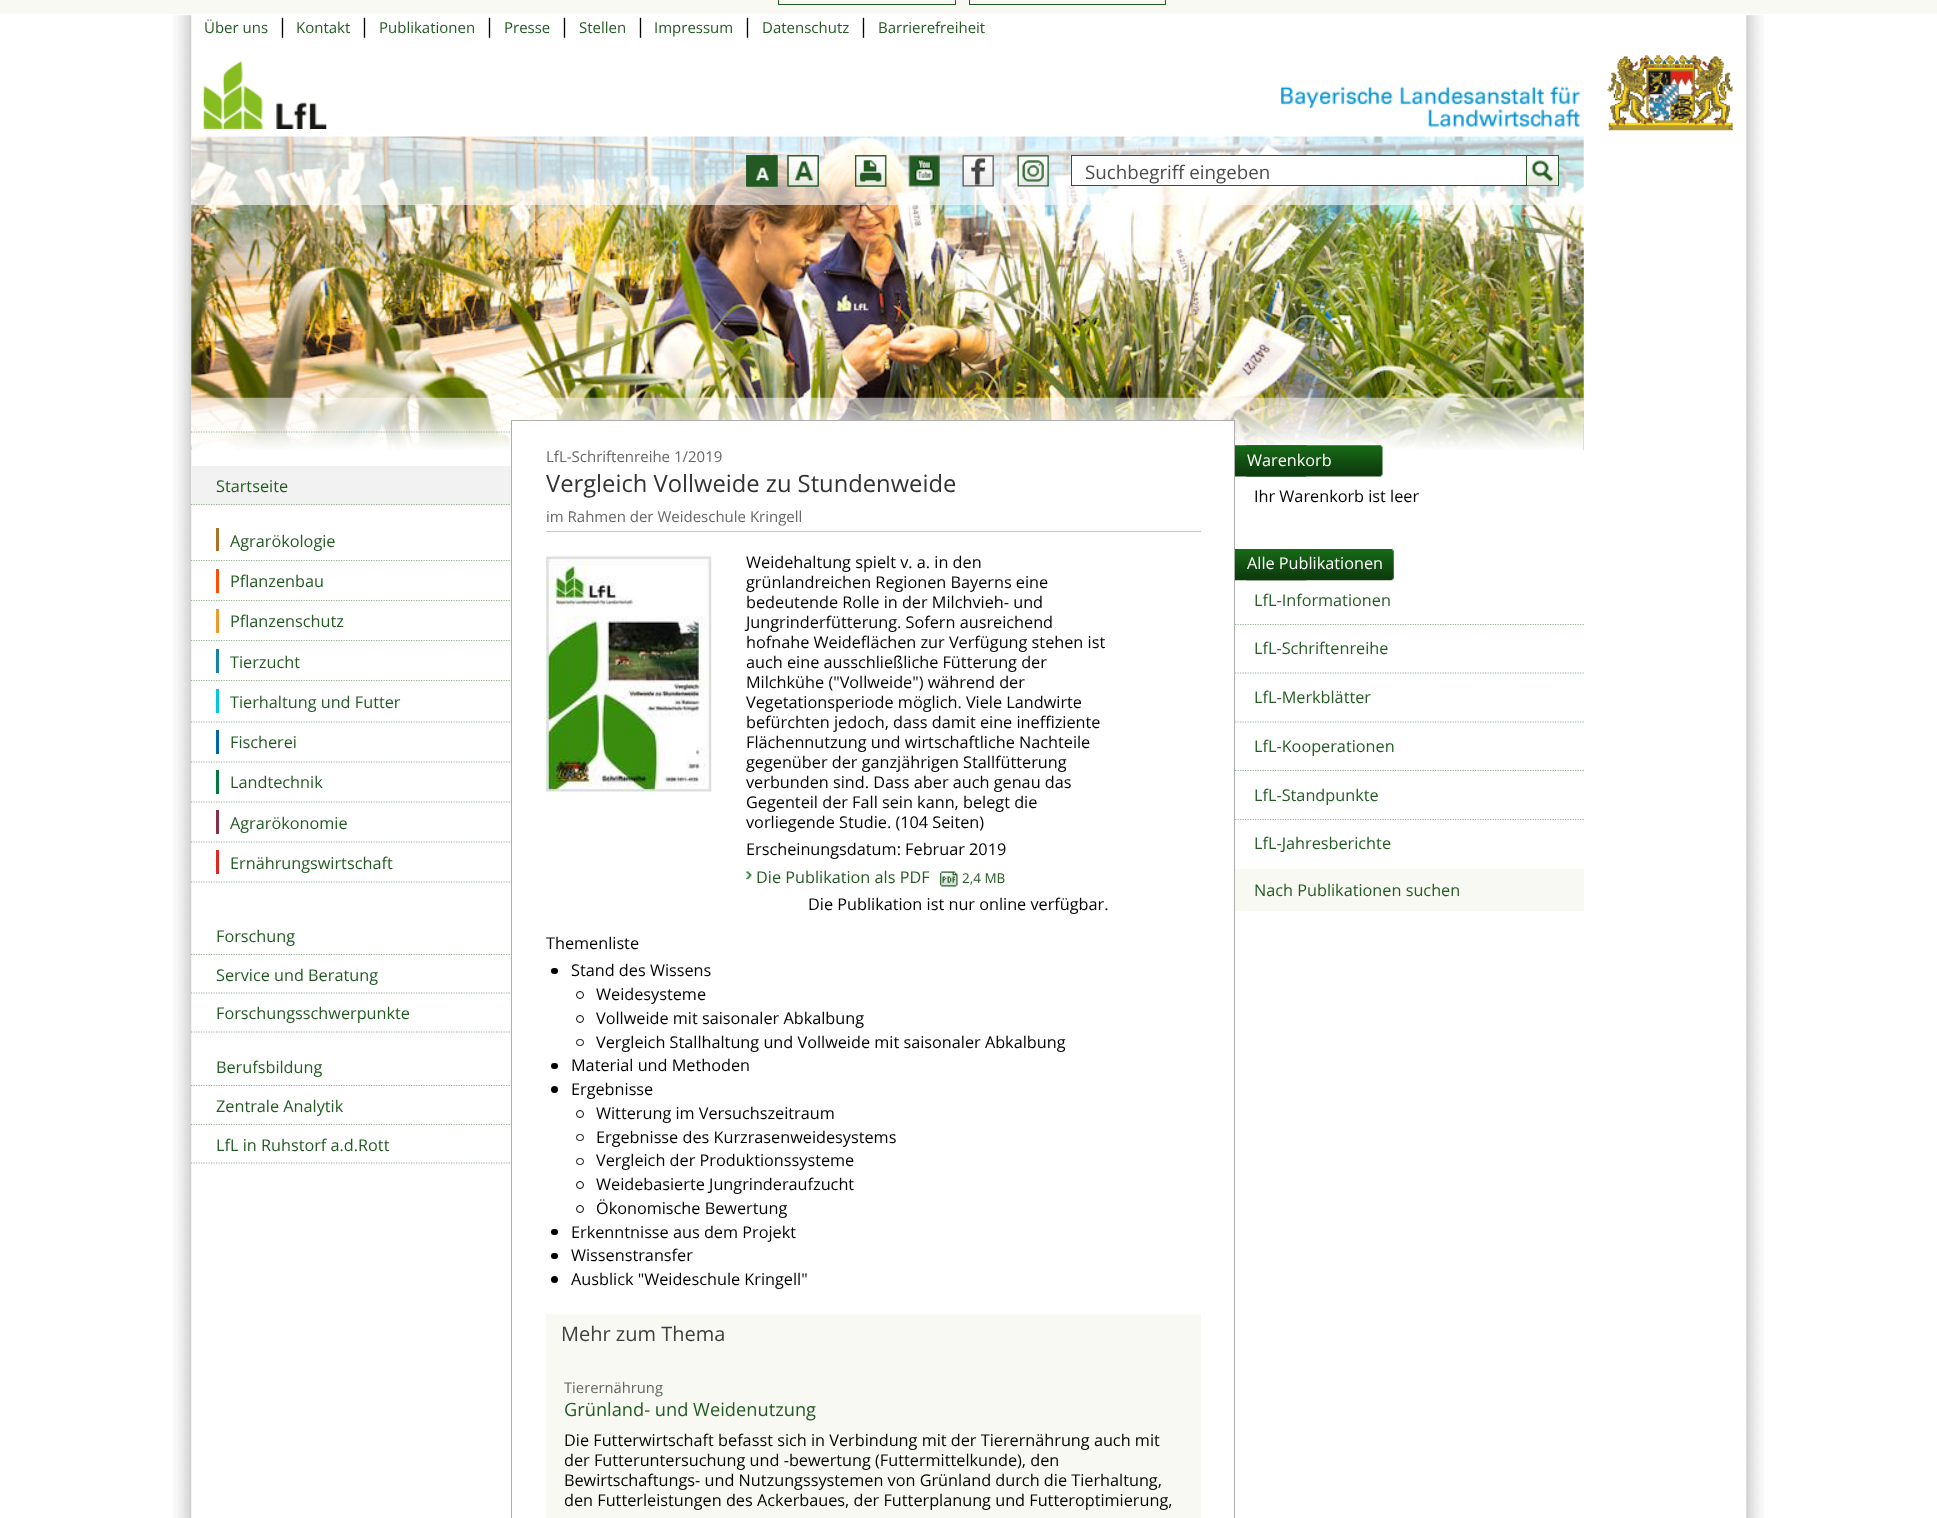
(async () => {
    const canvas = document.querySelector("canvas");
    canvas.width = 1937;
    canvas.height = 1518;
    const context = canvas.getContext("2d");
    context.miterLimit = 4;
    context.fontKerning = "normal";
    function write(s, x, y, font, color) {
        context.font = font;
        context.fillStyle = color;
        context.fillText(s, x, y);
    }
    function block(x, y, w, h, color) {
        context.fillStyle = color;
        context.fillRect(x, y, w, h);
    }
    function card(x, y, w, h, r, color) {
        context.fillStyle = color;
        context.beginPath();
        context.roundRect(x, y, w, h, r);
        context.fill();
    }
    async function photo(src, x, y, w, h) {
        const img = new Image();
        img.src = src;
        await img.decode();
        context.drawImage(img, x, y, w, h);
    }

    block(0, 0, 1937, 1518, "rgb(255, 255, 255)");
    block(0, 0, 1937, 14, "rgb(247, 249, 242)");
    context.strokeStyle = "rgb(35, 90, 35)";
    context.strokeRect(778.5, -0.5, 177, 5);
    context.strokeRect(969.5, -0.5, 196, 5);
    await photo("media/1.png", 173, 15, 19, 1503);
    await photo("media/2.png", 1746, 15, 18, 1503);
    write("Über uns", 204, 33, "15px Open Sans", "rgb(35, 90, 35)");
    write("|", 277, 33, "20px Open Sans", "rgb(0, 0, 0)");
    write("Kontakt", 296, 33, "15px Open Sans", "rgb(35, 90, 35)");
    write("|", 359, 33, "20px Open Sans", "rgb(0, 0, 0)");
    write("Publikationen", 379, 33, "15px Open Sans", "rgb(35, 90, 35)");
    write("|", 484, 33, "20px Open Sans", "rgb(0, 0, 0)");
    write("Presse", 504, 33, "15px Open Sans", "rgb(35, 90, 35)");
    write("|", 559, 33, "20px Open Sans", "rgb(0, 0, 0)");
    write("Stellen", 579, 33, "15px Open Sans", "rgb(35, 90, 35)");
    write("|", 635, 33, "20px Open Sans", "rgb(0, 0, 0)");
    write("Impressum", 654, 33, "15px Open Sans", "rgb(35, 90, 35)");
    write("|", 742, 33, "20px Open Sans", "rgb(0, 0, 0)");
    write("Datenschutz", 762, 33, "15px Open Sans", "rgb(35, 90, 35)");
    write("|", 858, 33, "20px Open Sans", "rgb(0, 0, 0)");
    write("Barrierefreiheit", 878, 33, "15px Open Sans", "rgb(35, 90, 35)");
    await photo("media/3.png", 203, 61, 124, 68);
    await photo("media/4.png", 1281, 86, 300, 41);
    await photo("media/5.png", 1607, 55, 126, 76);
    await photo("media/6.png", 191, 136, 1393, 315);
    block(191, 136, 1393, 69, "rgba(255, 255, 255, 0.6)");
    await photo("media/7.png", 746, 155, 32, 32);
    await photo("media/8.png", 746, 155, 32, 32);
    await photo("media/9.png", 787, 155, 32, 32);
    await photo("media/10.png", 787, 155, 32, 32);
    await photo("media/11.png", 855, 155, 32, 32);
    await photo("media/12.png", 855, 155, 32, 32);
    await photo("media/13.png", 908, 155, 32, 32);
    await photo("media/14.png", 962, 155, 32, 32);
    await photo("media/15.png", 1017, 155, 32, 32);
    block(1072, 156, 454, 29, "rgb(255, 255, 255)");
    context.strokeRect(1071.5, 155.5, 487, 30);
    write("Suchbegriff eingeben", 1085, 179, "18.75px Open Sans", "rgb(76, 76, 76)");
    block(1527, 156, 31, 29, "rgb(255, 255, 255)");
    block(1526, 155, 1, 31, "rgb(35, 90, 35)");
    await photo("media/16.png", 1527, 160, 31, 26);
    await photo("media/17.png", 191, 397, 1393, 55);
    context.beginPath();
    context.moveTo(191, 432);
    context.lineTo(511, 432);
    context.strokeStyle = "rgb(153, 178, 153)";
    context.lineWidth = 1.2;
    context.setLineDash([1.25, 1.25]);
    context.stroke();
    block(192, 466, 319, 39, "rgb(242, 242, 242)");
    context.beginPath();
    context.moveTo(191, 504.5);
    context.lineTo(511, 504.5);
    context.stroke();
    write("Startseite", 216, 492, "16.25px Open Sans", "rgb(35, 90, 35)");
    context.beginPath();
    context.moveTo(191, 560.5);
    context.lineTo(511, 560.5);
    context.stroke();
    block(216, 528, 3, 23, "rgb(173, 113, 36)");
    write("Agrarökologie", 230, 547, "16.25px Open Sans", "rgb(35, 90, 35)");
    context.beginPath();
    context.moveTo(191, 600.5);
    context.lineTo(511, 600.5);
    context.stroke();
    block(216, 569, 3, 24, "rgb(255, 78, 4)");
    write("Pflanzenbau", 230, 587, "16.25px Open Sans", "rgb(35, 90, 35)");
    context.beginPath();
    context.moveTo(191, 640.5);
    context.lineTo(511, 640.5);
    context.stroke();
    block(216, 609, 3, 24, "rgb(239, 154, 42)");
    write("Pflanzenschutz", 230, 627, "16.25px Open Sans", "rgb(35, 90, 35)");
    context.beginPath();
    context.moveTo(191, 680.5);
    context.lineTo(511, 680.5);
    context.stroke();
    block(216, 649, 3, 24, "rgb(21, 131, 166)");
    write("Tierzucht", 230, 668, "16.25px Open Sans", "rgb(35, 90, 35)");
    context.beginPath();
    context.moveTo(191, 722);
    context.lineTo(511, 722);
    context.stroke();
    block(216, 689, 3, 24, "rgb(0, 200, 218)");
    write("Tierhaltung und Futter", 230, 708, "16.25px Open Sans", "rgb(35, 90, 35)");
    context.beginPath();
    context.moveTo(191, 762);
    context.lineTo(511, 762);
    context.stroke();
    block(216, 730, 3, 24, "rgb(0, 100, 168)");
    write("Fischerei", 230, 748, "16.25px Open Sans", "rgb(35, 90, 35)");
    context.beginPath();
    context.moveTo(191, 802);
    context.lineTo(511, 802);
    context.stroke();
    block(216, 770, 3, 24, "rgb(0, 121, 63)");
    write("Landtechnik", 230, 788, "16.25px Open Sans", "rgb(35, 90, 35)");
    context.beginPath();
    context.moveTo(191, 842);
    context.lineTo(511, 842);
    context.stroke();
    block(216, 810, 3, 24, "rgb(133, 48, 70)");
    write("Agrarökonomie", 230, 829, "16.25px Open Sans", "rgb(35, 90, 35)");
    context.beginPath();
    context.moveTo(191, 882);
    context.lineTo(511, 882);
    context.stroke();
    block(216, 850, 3, 24, "rgb(222, 41, 34)");
    write("Ernährungswirtschaft", 230, 869, "16.25px Open Sans", "rgb(35, 90, 35)");
    context.beginPath();
    context.moveTo(191, 954.5);
    context.lineTo(511, 954.5);
    context.stroke();
    write("Forschung", 216, 942, "16.25px Open Sans", "rgb(35, 90, 35)");
    context.beginPath();
    context.moveTo(191, 993);
    context.lineTo(511, 993);
    context.stroke();
    write("Service und Beratung", 216, 981, "16.25px Open Sans", "rgb(35, 90, 35)");
    context.beginPath();
    context.moveTo(191, 1032);
    context.lineTo(511, 1032);
    context.stroke();
    write("Forschungsschwerpunkte", 216, 1019, "16.25px Open Sans", "rgb(35, 90, 35)");
    context.beginPath();
    context.moveTo(191, 1085.5);
    context.lineTo(511, 1085.5);
    context.stroke();
    write("Berufsbildung", 216, 1073, "16.25px Open Sans", "rgb(35, 90, 35)");
    context.beginPath();
    context.moveTo(191, 1124.5);
    context.lineTo(511, 1124.5);
    context.stroke();
    write("Zentrale Analytik", 216, 1112, "16.25px Open Sans", "rgb(35, 90, 35)");
    context.beginPath();
    context.moveTo(191, 1163);
    context.lineTo(511, 1163);
    context.stroke();
    write("LfL in Ruhstorf a.d.Rott", 216, 1151, "16.25px Open Sans", "rgb(35, 90, 35)");
    block(512, 421, 722, 29, "rgb(255, 255, 255)");
    block(511, 420, 724, 1, "rgb(174, 174, 174)");
    block(1234, 420, 1, 1098, "rgb(174, 174, 174)");
    block(511, 420, 1, 1098, "rgb(174, 174, 174)");
    block(546, 531, 655, 1, "rgb(198, 198, 198)");
    write("LfL-Schriftenreihe 1/2019", 546, 462, "15px Open Sans", "rgb(102, 102, 102)");
    write("Vergleich Vollweide zu Stundenweide", 546, 492, "23.75px Open Sans", "rgb(51, 51, 51)");
    write("im Rahmen der Weideschule Kringell", 546, 522, "15px Open Sans", "rgb(102, 102, 102)");
    await photo("media/18.png", 546, 556, 166, 236);
    write("Weidehaltung spielt v. a. in den", 746, 568, "16.25px Open Sans", "rgb(0, 0, 0)");
    write("grünlandreichen Regionen Bayerns eine", 746, 588, "16.25px Open Sans", "rgb(0, 0, 0)");
    write("bedeutende Rolle in der Milchvieh- und", 746, 608, "16.25px Open Sans", "rgb(0, 0, 0)");
    write("Jungrinderfütterung. Sofern ausreichend", 746, 628, "16.25px Open Sans", "rgb(0, 0, 0)");
    write("hofnahe Weideflächen zur Verfügung stehen ist", 746, 648, "16.25px Open Sans", "rgb(0, 0, 0)");
    write("auch eine ausschließliche Fütterung der", 746, 668, "16.25px Open Sans", "rgb(0, 0, 0)");
    write("Milchkühe (\"Vollweide\") während der", 746, 688, "16.25px Open Sans", "rgb(0, 0, 0)");
    write("Vegetationsperiode möglich. Viele Landwirte", 746, 708, "16.25px Open Sans", "rgb(0, 0, 0)");
    write("befürchten jedoch, dass damit eine ineffiziente", 746, 728, "16.25px Open Sans", "rgb(0, 0, 0)");
    write("Flächennutzung und wirtschaftliche Nachteile", 746, 748, "16.25px Open Sans", "rgb(0, 0, 0)");
    write("gegenüber der ganzjährigen Stallfütterung", 746, 768, "16.25px Open Sans", "rgb(0, 0, 0)");
    write("verbunden sind. Dass aber auch genau das", 746, 788, "16.25px Open Sans", "rgb(0, 0, 0)");
    write("Gegenteil der Fall sein kann, belegt die", 746, 808, "16.25px Open Sans", "rgb(0, 0, 0)");
    write("vorliegende Studie. (104 Seiten)", 746, 828, "16.25px Open Sans", "rgb(0, 0, 0)");
    write("Erscheinungsdatum: Februar 2019", 746, 855, "16.25px Open Sans", "rgb(0, 0, 0)");
    await photo("media/19.png", 746, 871, 6, 9);
    write("Die Publikation als PDF", 756, 883, "16.25px Open Sans", "rgb(35, 90, 35)");
    await photo("media/20.png", 939, 871, 19, 16);
    write("2,4 MB", 962, 883, "13.5px Open Sans", "rgb(35, 90, 35)");
    write("Die Publikation ist nur online verfügbar.", 808, 910, "16.25px Open Sans", "rgb(0, 0, 0)");
    write("Themenliste", 546, 949, "16.25px Open Sans", "rgb(0, 0, 0)");
    card(551, 968, 7, 6, 3, "rgb(0, 0, 0)");
    write("Stand des Wissens", 571, 976, "16.25px Open Sans", "rgb(0, 0, 0)");
    context.beginPath();
    context.arc(580, 995, 3.5, 0, Math.PI * 2);
    context.strokeStyle = "rgb(0, 0, 0)";
    context.lineWidth = 1;
    context.setLineDash([]);
    context.stroke();
    write("Weidesysteme", 596, 1000, "16.25px Open Sans", "rgb(0, 0, 0)");
    context.beginPath();
    context.arc(580, 1019, 3.5, 0, Math.PI * 2);
    context.stroke();
    write("Vollweide mit saisonaler Abkalbung", 596, 1024, "16.25px Open Sans", "rgb(0, 0, 0)");
    context.beginPath();
    context.roundRect(576.5, 1039.5, 7, 6, 3);
    context.stroke();
    write("Vergleich Stallhaltung und Vollweide mit saisonaler Abkalbung", 596, 1048, "16.25px Open Sans", "rgb(0, 0, 0)");
    card(551, 1063, 7, 6, 3, "rgb(0, 0, 0)");
    write("Material und Methoden", 571, 1071, "16.25px Open Sans", "rgb(0, 0, 0)");
    context.beginPath();
    context.arc(554.5, 1089.5, 3.5, 0, Math.PI * 2);
    context.fill();
    write("Ergebnisse", 571, 1095, "16.25px Open Sans", "rgb(0, 0, 0)");
    context.beginPath();
    context.arc(580, 1114, 3.5, 0, Math.PI * 2);
    context.stroke();
    write("Witterung im Versuchszeitraum", 596, 1119, "16.25px Open Sans", "rgb(0, 0, 0)");
    context.beginPath();
    context.roundRect(576.5, 1134.5, 7, 6, 3);
    context.stroke();
    write("Ergebnisse des Kurzrasenweidesystems", 596, 1143, "16.25px Open Sans", "rgb(0, 0, 0)");
    context.beginPath();
    context.roundRect(576.5, 1158.5, 7, 6, 3);
    context.stroke();
    write("Vergleich der Produktionssysteme", 596, 1166, "16.25px Open Sans", "rgb(0, 0, 0)");
    context.beginPath();
    context.arc(580, 1185, 3.5, 0, Math.PI * 2);
    context.stroke();
    write("Weidebasierte Jungrinderaufzucht", 596, 1190, "16.25px Open Sans", "rgb(0, 0, 0)");
    context.beginPath();
    context.arc(580, 1209, 3.5, 0, Math.PI * 2);
    context.stroke();
    write("Ökonomische Bewertung", 596, 1214, "16.25px Open Sans", "rgb(0, 0, 0)");
    card(551, 1229, 7, 6, 3, "rgb(0, 0, 0)");
    write("Erkenntnisse aus dem Projekt", 571, 1238, "16.25px Open Sans", "rgb(0, 0, 0)");
    card(551, 1253, 7, 6, 3, "rgb(0, 0, 0)");
    write("Wissenstransfer", 571, 1261, "16.25px Open Sans", "rgb(0, 0, 0)");
    context.beginPath();
    context.arc(554.5, 1279.5, 3.5, 0, Math.PI * 2);
    context.fill();
    write("Ausblick \"Weideschule Kringell\"", 571, 1285, "16.25px Open Sans", "rgb(0, 0, 0)");
    block(546, 1314, 655, 204, "rgb(247, 249, 242)");
    write("Mehr zum Thema", 561, 1341, "20px Open Sans", "rgb(63, 63, 63)");
    write("Tierernährung", 564, 1393, "14.75px Open Sans", "rgb(102, 102, 102)");
    write("Grünland- und Weidenutzung", 564, 1416, "18.25px Open Sans", "rgb(35, 90, 35)");
    write("Die Futterwirtschaft befasst sich in Verbindung mit der Tierernährung auch mit", 564, 1446, "16.25px Open Sans", "rgb(0, 0, 0)");
    write("der Futteruntersuchung und -bewertung (Futtermittelkunde), den", 564, 1466, "16.25px Open Sans", "rgb(0, 0, 0)");
    write("Bewirtschaftungs- und Nutzungssystemen von Grünland durch die Tierhaltung,", 564, 1486, "16.25px Open Sans", "rgb(0, 0, 0)");
    write("den Futterleistungen des Ackerbaues, der Futterplanung und Futteroptimierung,", 564, 1506, "16.25px Open Sans", "rgb(0, 0, 0)");
    await photo("media/21.png", 1235, 445, 72, 32);
    await photo("media/22.png", 1246, 445, 137, 32);
    write("Warenkorb", 1247, 466, "16.25px Open Sans", "rgb(255, 255, 255)");
    write("Ihr Warenkorb ist leer", 1254, 502, "16.25px Open Sans", "rgb(0, 0, 0)");
    await photo("media/23.png", 1235, 549, 72, 32);
    await photo("media/24.png", 1246, 549, 148, 32);
    write("Alle Publikationen", 1247, 569, "16.25px Open Sans", "rgb(255, 255, 255)");
    context.beginPath();
    context.moveTo(1235, 624.5);
    context.lineTo(1584, 624.5);
    context.strokeStyle = "rgb(153, 178, 153)";
    context.lineWidth = 1.2;
    context.setLineDash([1.25, 1.25]);
    context.stroke();
    write("LfL-Informationen", 1254, 606, "16.25px Open Sans", "rgb(35, 90, 35)");
    context.beginPath();
    context.moveTo(1235, 673);
    context.lineTo(1584, 673);
    context.stroke();
    write("LfL-Schriftenreihe", 1254, 654, "16.25px Open Sans", "rgb(35, 90, 35)");
    context.beginPath();
    context.moveTo(1235, 722);
    context.lineTo(1584, 722);
    context.stroke();
    write("LfL-Merkblätter", 1254, 703, "16.25px Open Sans", "rgb(35, 90, 35)");
    context.beginPath();
    context.moveTo(1235, 770.5);
    context.lineTo(1584, 770.5);
    context.stroke();
    write("LfL-Kooperationen", 1254, 752, "16.25px Open Sans", "rgb(35, 90, 35)");
    context.beginPath();
    context.moveTo(1235, 819.5);
    context.lineTo(1584, 819.5);
    context.stroke();
    write("LfL-Standpunkte", 1254, 801, "16.25px Open Sans", "rgb(35, 90, 35)");
    write("LfL-Jahresberichte", 1254, 849, "16.25px Open Sans", "rgb(35, 90, 35)");
    block(1235, 869, 349, 42, "rgb(247, 249, 242)");
    write("Nach Publikationen suchen", 1254, 896, "16.25px Open Sans", "rgb(35, 90, 35)");
})();
